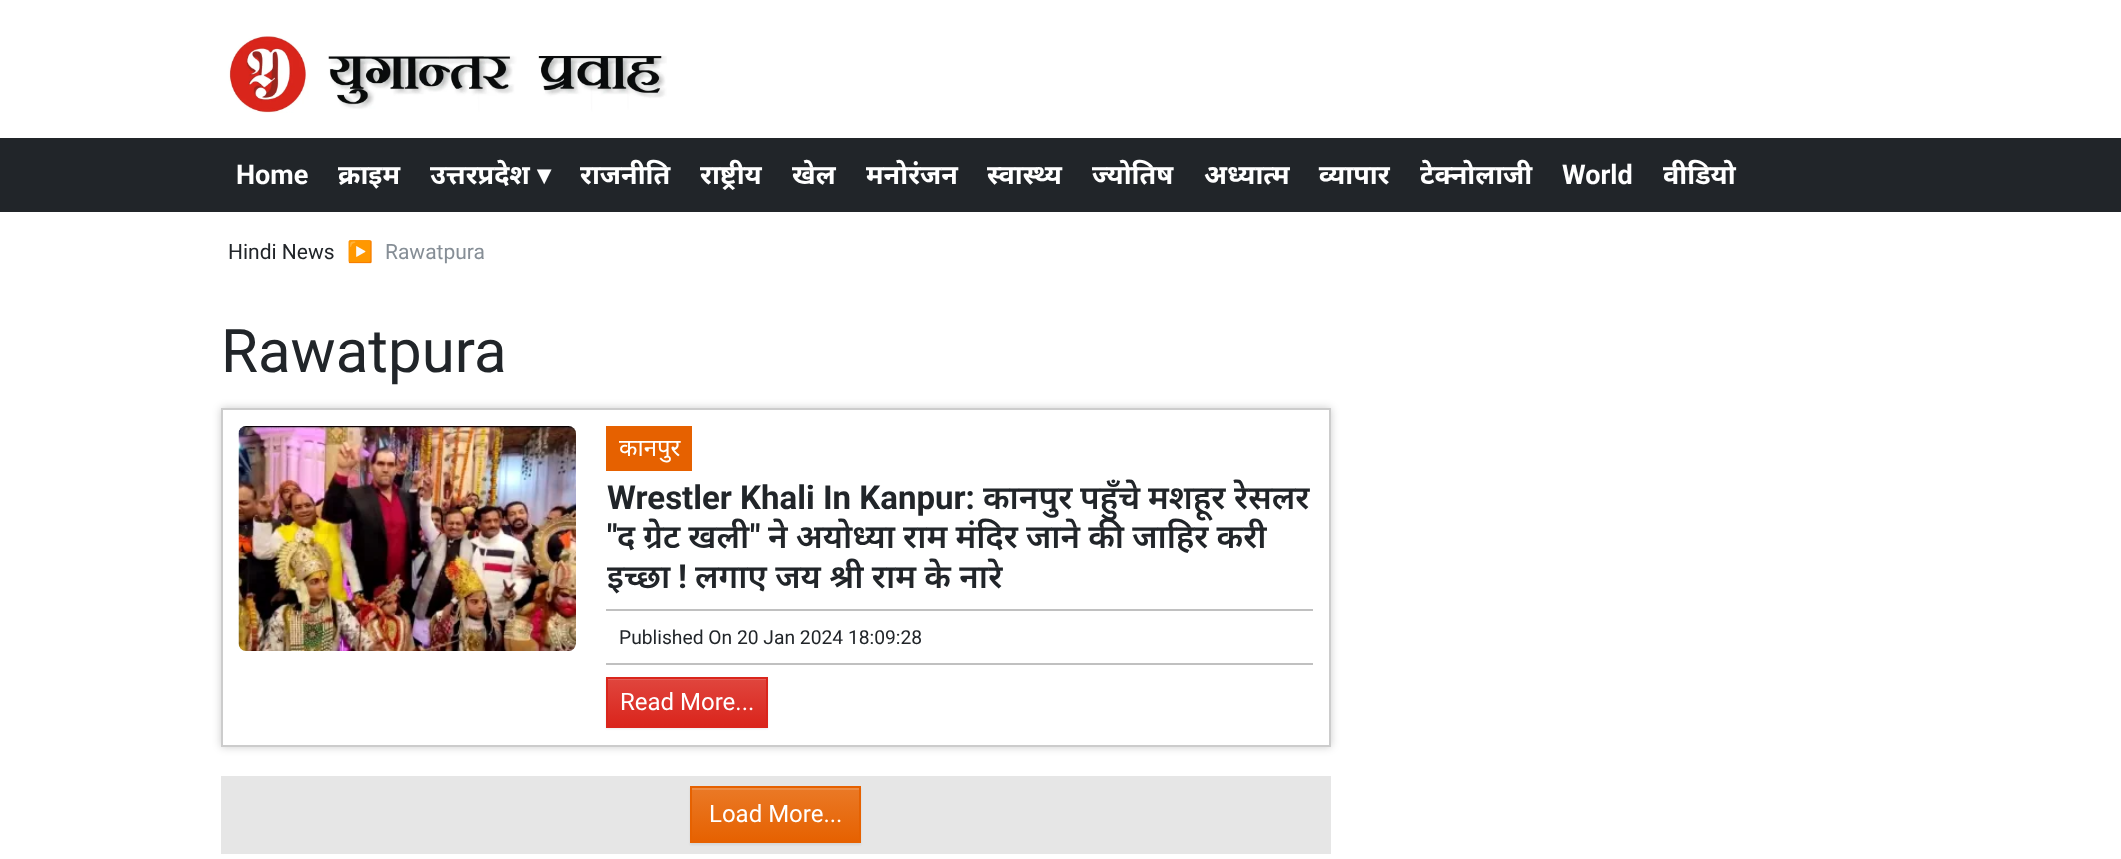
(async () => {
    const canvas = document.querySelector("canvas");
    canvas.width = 2121;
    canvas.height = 859;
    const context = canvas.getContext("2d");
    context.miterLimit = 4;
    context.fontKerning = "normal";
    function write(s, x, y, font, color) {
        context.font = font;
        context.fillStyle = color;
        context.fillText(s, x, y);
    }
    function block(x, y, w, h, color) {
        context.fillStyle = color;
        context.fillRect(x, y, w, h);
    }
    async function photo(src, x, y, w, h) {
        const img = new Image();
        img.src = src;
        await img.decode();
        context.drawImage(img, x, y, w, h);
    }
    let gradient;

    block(0, 0, 2121, 859, "rgb(255, 255, 255)");
    await photo("media/1.png", 228, 36, 439, 77);
    block(0, 138, 2121, 74, "rgb(33, 37, 41)");
    write("Home", 236, 184, "bold 27px Roboto", "rgb(255, 255, 255)");
    write("क्राइम", 338, 184, "bold 27px Noto Sans", "rgb(255, 255, 255)");
    write("उत्तरप्रदेश", 430, 184, "bold 27px Noto Sans", "rgb(255, 255, 255)");
    write("▾", 537, 184, "bold 27px DejaVu Sans", "rgb(255, 255, 255)");
    write("राजनीति", 580, 184, "bold 27px Noto Sans", "rgb(255, 255, 255)");
    write("राष्ट्रीय", 700, 184, "bold 27px Noto Sans", "rgb(255, 255, 255)");
    write("खेल", 792, 184, "bold 27px Noto Sans", "rgb(255, 255, 255)");
    write("मनोरंजन", 866, 184, "bold 27px Noto Sans", "rgb(255, 255, 255)");
    write("स्वास्थ्य", 987, 184, "bold 27px Noto Sans", "rgb(255, 255, 255)");
    write("ज्योतिष", 1092, 184, "bold 27px Noto Sans", "rgb(255, 255, 255)");
    write("अध्यात्म", 1204, 184, "bold 27px Noto Sans", "rgb(255, 255, 255)");
    write("व्यापार", 1319, 184, "bold 27px Noto Sans", "rgb(255, 255, 255)");
    write("टेक्नोलाजी", 1420, 184, "bold 27px Noto Sans", "rgb(255, 255, 255)");
    write("World", 1562, 184, "bold 27px Roboto", "rgb(255, 255, 255)");
    write("वीडियो", 1663, 184, "bold 27px Noto Sans", "rgb(255, 255, 255)");
    write("Hindi News", 228, 259, "21px Roboto", "rgb(33, 37, 41)");
    write("▶", 347, 259, "21px Noto Color Emoji", "rgb(134, 142, 150)");
    write("Rawatpura", 385, 259, "21px Roboto", "rgb(134, 142, 150)");
    write("Rawatpura", 221, 372, "60px Roboto", "rgb(33, 37, 41)");
    context.fillStyle = "rgba(0, 0, 0, 0.2)";
    context.filter = "blur(4px)";
    context.beginPath();
    context.rect(221, 408, 1110, 339);
    context.fill();
    context.filter = "none";
    context.fillStyle = "rgb(255, 255, 255)";
    context.beginPath();
    context.rect(222, 409, 1108, 337);
    context.fill();
    context.strokeStyle = "rgb(204, 204, 204)";
    context.lineWidth = 2;
    context.stroke();
    await photo("media/2.png", 238, 426, 338, 225);
    block(606, 426, 86, 45, "rgb(230, 97, 0)");
    write("कानपुर", 619, 456, "24px Noto Sans", "rgb(255, 255, 255)");
    write("Wrestler Khali In Kanpur:", 607, 509, "bold 33px Roboto", "rgb(33, 37, 41)");
    write("कानपुर", 983, 509, "600 33px Noto Sans", "rgb(33, 37, 41)");
    write("पहुँचे", 1080, 509, "600 33px Noto Sans", "rgb(33, 37, 41)");
    write("मशहूर", 1148, 509, "600 33px Noto Sans", "rgb(33, 37, 41)");
    write("रेसलर", 1234, 509, "600 33px Noto Sans", "rgb(33, 37, 41)");
    write("\"", 607, 548, "bold 33px Roboto", "rgb(33, 37, 41)");
    context.wordSpacing = "-0.5px";
    write("द ग्रेट खली", 617, 548, "600 33px Noto Sans", "rgb(33, 37, 41)");
    context.wordSpacing = "0px";
    write("\"", 750, 548, "bold 33px Roboto", "rgb(33, 37, 41)");
    context.wordSpacing = "-0.5px";
    write("ने अयोध्या राम मंदिर जाने की जाहिर करी", 768, 548, "600 33px Noto Sans", "rgb(33, 37, 41)");
    context.wordSpacing = "0px";
    write("इच्छा", 607, 588, "600 33px Noto Sans", "rgb(33, 37, 41)");
    write("!", 678, 588, "bold 33px Roboto", "rgb(33, 37, 41)");
    context.wordSpacing = "-0.25px";
    write("लगाए जय श्री राम के नारे", 695, 588, "600 33px Noto Sans", "rgb(33, 37, 41)");
    block(606, 609, 707, 2, "rgb(192, 192, 192)");
    block(606, 663, 707, 2, "rgb(192, 192, 192)");
    context.wordSpacing = "0px";
    write("Published On 20 Jan 2024 18:09:28", 619, 644, "19.25px Roboto", "rgb(33, 37, 41)");
    context.fillStyle = "rgba(0, 0, 0, 0.07)";
    context.filter = "blur(1px)";
    context.beginPath();
    context.rect(606, 678, 162, 51);
    context.fill();
    context.filter = "none";
    gradient = context.createLinearGradient(687, 678, 687, 726);
    gradient.addColorStop(0, "rgb(224, 70, 62)");
    gradient.addColorStop(1, "rgb(218, 37, 28)");
    context.fillStyle = gradient;
    context.fillRect(608, 680, 158, 46);
    block(608, 679, 159, 1, "rgb(229, 97, 91)");
    context.strokeStyle = "rgb(218, 37, 28)";
    context.strokeRect(607, 678, 160, 49);
    write("Read More...", 620, 710, "24px Roboto", "rgb(255, 255, 255)");
    block(221, 776, 1110, 78, "rgb(230, 230, 230)");
    context.fillStyle = "rgba(0, 0, 0, 0.07)";
    context.filter = "blur(1px)";
    context.beginPath();
    context.rect(690, 788, 171, 57);
    context.fill();
    context.filter = "none";
    gradient = context.createLinearGradient(776, 788, 776, 842);
    gradient.addColorStop(0, "rgb(234, 121, 38)");
    gradient.addColorStop(1, "rgb(230, 97, 0)");
    context.fillStyle = gradient;
    context.fillRect(692, 790, 167, 51);
    block(692, 788, 168, 2, "rgb(237, 141, 70)");
    context.strokeStyle = "rgb(230, 97, 0)";
    context.strokeRect(691, 787, 169, 55);
    write("Load More...", 709, 822, "24px Roboto", "rgb(255, 255, 255)");
})();
